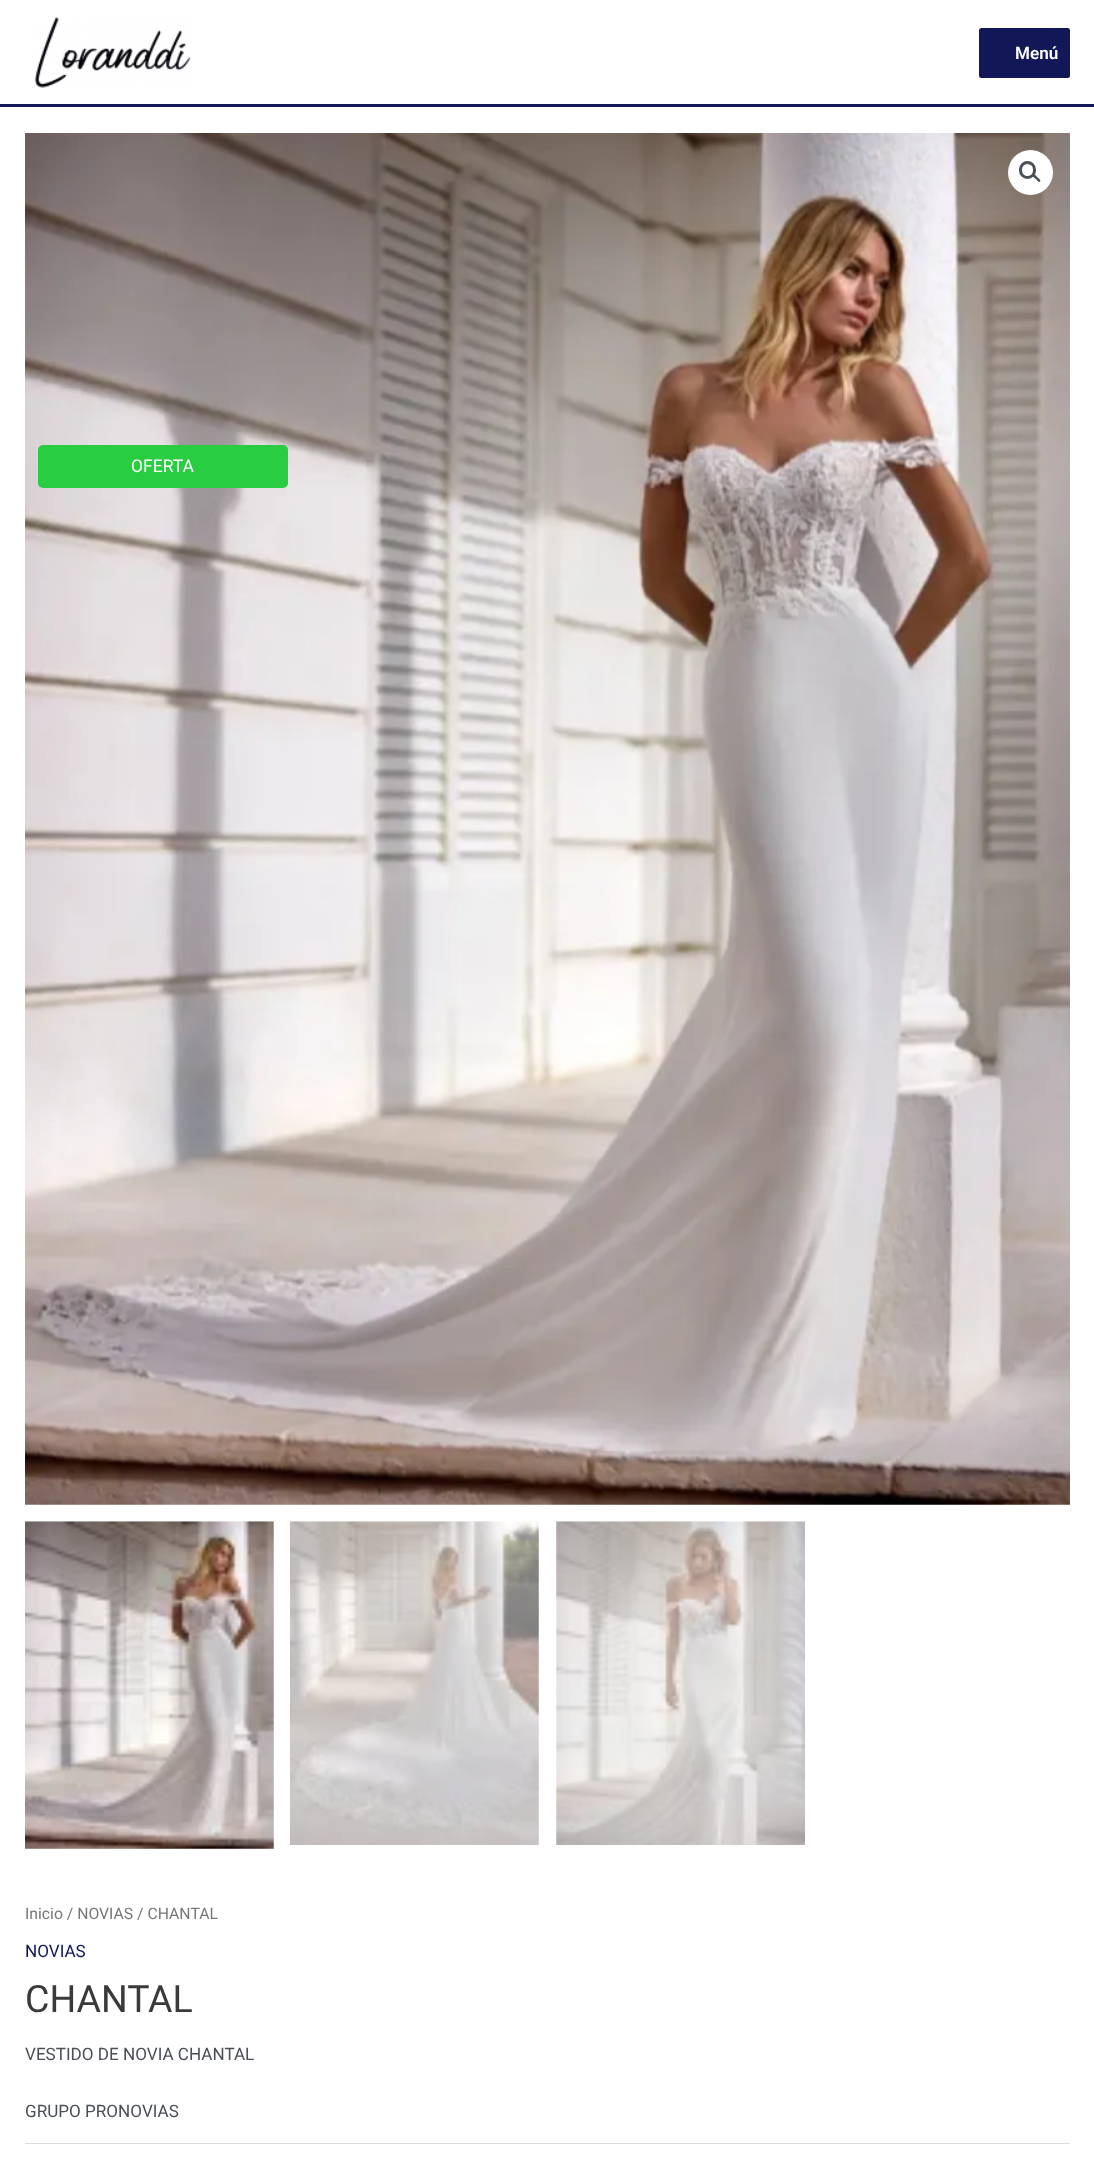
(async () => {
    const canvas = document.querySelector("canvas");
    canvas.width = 1094;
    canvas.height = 2163;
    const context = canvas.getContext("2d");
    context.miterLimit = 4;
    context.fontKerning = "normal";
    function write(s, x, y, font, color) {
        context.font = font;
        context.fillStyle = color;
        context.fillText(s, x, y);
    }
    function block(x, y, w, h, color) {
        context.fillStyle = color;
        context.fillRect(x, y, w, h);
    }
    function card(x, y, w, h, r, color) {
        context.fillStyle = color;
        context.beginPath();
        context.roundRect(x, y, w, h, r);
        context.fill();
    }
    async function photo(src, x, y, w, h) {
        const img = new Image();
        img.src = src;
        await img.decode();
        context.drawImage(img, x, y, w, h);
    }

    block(0, 0, 1094, 2163, "rgb(255, 255, 255)");
    block(0, 104, 1094, 3, "rgb(18, 24, 87)");
    await photo("media/1.png", 34, 17, 157, 71);
    card(979, 28, 91, 50, 2.5, "rgb(18, 24, 87)");
    write("Menú", 1015, 59, "600 17.1px Roboto", "rgb(255, 255, 255)");
    await photo("media/2.png", 25, 133, 1045, 1372);
    context.beginPath();
    context.arc(1030.5, 172.5, 22.5, 0, Math.PI * 2);
    context.fill();
    context.beginPath();
    context.roundRect(1020.5, 162.5, 14, 15, 7);
    context.strokeStyle = "rgb(75, 79, 88)";
    context.lineWidth = 3;
    context.stroke();
    context.fillStyle = "rgb(75, 79, 88)";
    context.beginPath();
    context.moveTo(1033, 174.5);
    context.bezierCurveTo(1034.5, 173, 1037, 176.5, 1037.5, 177.5);
    context.bezierCurveTo(1038.5, 178, 1041.5, 180.5, 1040, 181.5);
    context.bezierCurveTo(1039, 183, 1036.5, 180, 1036, 179);
    context.bezierCurveTo(1035, 178.5, 1031.5, 176, 1033, 174.5);
    context.closePath();
    context.fill();
    await photo("media/3.png", 25, 1521, 249, 328);
    await photo("media/4.png", 290, 1521, 249, 324);
    await photo("media/5.png", 556, 1521, 249, 324);
    card(38, 445, 250, 43, 5, "rgb(40, 205, 65)");
    write("OFERTA", 131, 472, "17.5px Roboto", "rgb(255, 255, 255)");
    write("Inicio / NOVIAS / CHANTAL", 25, 1919, "15.75px Roboto", "rgb(119, 119, 119)");
    write("NOVIAS", 25, 1957, "17.1px Roboto", "rgb(17, 24, 87)");
    write("CHANTAL", 25, 2012, "37.5px Roboto", "rgb(58, 58, 58)");
    write("VESTIDO DE NOVIA CHANTAL", 25, 2060, "17.1px Roboto", "rgb(75, 79, 88)");
    write("GRUPO PRONOVIAS", 25, 2117, "17.1px Roboto", "rgb(75, 79, 88)");
    block(25, 2143, 1045, 1, "rgb(221, 221, 221)");
})();
